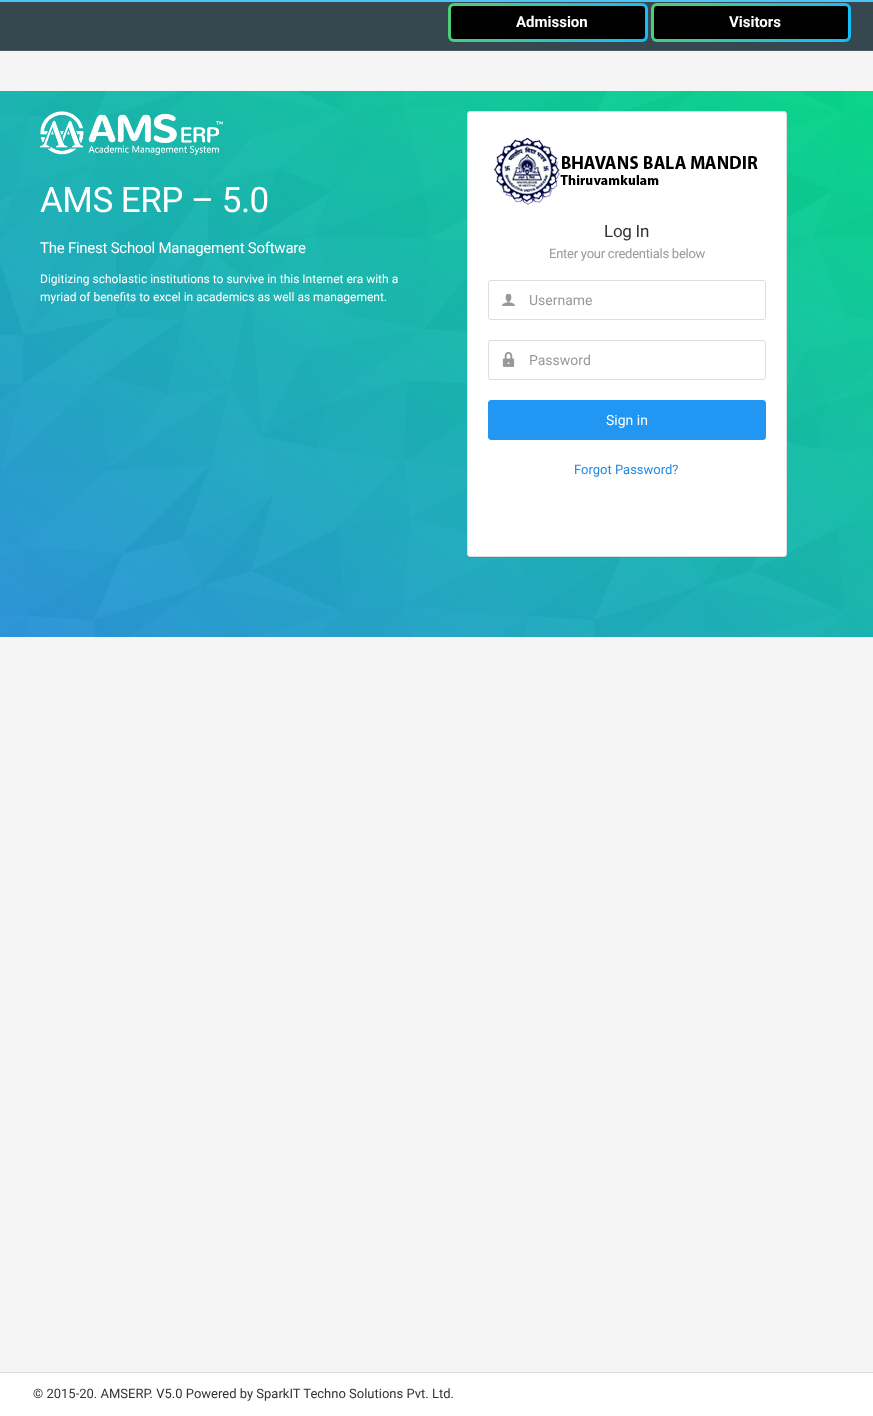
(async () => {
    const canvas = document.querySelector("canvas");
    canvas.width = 873;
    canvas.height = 1416;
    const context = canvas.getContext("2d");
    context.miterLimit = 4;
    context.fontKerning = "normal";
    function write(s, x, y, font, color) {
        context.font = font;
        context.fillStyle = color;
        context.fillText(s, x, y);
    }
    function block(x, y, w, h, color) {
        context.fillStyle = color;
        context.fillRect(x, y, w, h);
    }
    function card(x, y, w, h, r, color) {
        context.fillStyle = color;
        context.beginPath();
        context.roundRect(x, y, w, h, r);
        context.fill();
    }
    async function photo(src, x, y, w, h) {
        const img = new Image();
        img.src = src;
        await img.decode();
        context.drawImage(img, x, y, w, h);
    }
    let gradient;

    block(0, 0, 873, 1416, "rgb(245, 245, 245)");
    block(0, 0, 873, 2, "rgb(79, 195, 247)");
    block(0, 2, 873, 48, "rgb(55, 71, 79)");
    block(0, 50, 873, 1, "rgb(75, 89, 97)");
    gradient = context.createLinearGradient(458, -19, 638, 64);
    gradient.addColorStop(0, "rgb(79, 207, 112)");
    gradient.addColorStop(1, "rgb(18, 188, 254)");
    context.fillStyle = gradient;
    context.beginPath();
    context.roundRect(448, 3, 200, 39, 6);
    context.fill();
    card(451, 6, 194, 33, 3, "rgb(0, 0, 0)");
    write("Admission", 516, 27, "bold 15px Roboto", "rgb(255, 255, 255)");
    gradient = context.createLinearGradient(661, -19, 841, 64);
    gradient.addColorStop(0, "rgb(79, 207, 112)");
    gradient.addColorStop(1, "rgb(18, 188, 254)");
    context.fillStyle = gradient;
    context.beginPath();
    context.roundRect(651, 3, 200, 39, 6);
    context.fill();
    card(654, 6, 194, 33, 3, "rgb(0, 0, 0)");
    write("Visitors", 729, 27, "bold 15px Roboto", "rgb(255, 255, 255)");
    await photo("media/1.png", 0, 91, 873, 546);
    await photo("media/2.png", 40, 111, 183, 44);
    context.letterSpacing = "-0.5px";
    write("AMS ERP – 5.0", 40, 212, "35px Roboto", "rgb(255, 255, 255)");
    context.letterSpacing = "-0.25px";
    write("The Finest School Management Software", 40, 253, "15px Roboto", "rgb(255, 255, 255)");
    context.letterSpacing = "0px";
    write("Digitizing scholastic institutions to survive in this Internet era with a", 40, 283, "12px Roboto", "rgb(255, 255, 255)");
    write("myriad of benefits to excel in academics as well as management.", 40, 301, "12px Roboto", "rgb(255, 255, 255)");
    context.fillStyle = "rgba(0, 0, 0, 0.05)";
    context.filter = "blur(0.5px)";
    context.beginPath();
    context.roundRect(467, 112, 320, 446, 3);
    context.fill();
    context.filter = "none";
    context.fillStyle = "rgb(255, 255, 255)";
    context.beginPath();
    context.roundRect(467.5, 111.5, 319, 445, 2.5);
    context.fill();
    context.strokeStyle = "rgb(221, 221, 221)";
    context.stroke();
    await photo("media/3.png", 493, 138, 265, 67);
    context.letterSpacing = "-0.25px";
    write("Log In", 604, 237, "17px Roboto", "rgb(51, 51, 51)");
    write("Enter your credentials below", 549, 258, "13px Roboto", "rgb(153, 153, 153)");
    context.beginPath();
    context.roundRect(488.5, 280.5, 277, 39, 2.5);
    context.stroke();
    await photo("media/4.png", 502, 293, 13, 13);
    context.letterSpacing = "0px";
    write("Username", 529, 305, "14px Roboto", "rgb(153, 153, 153)");
    context.beginPath();
    context.roundRect(488.5, 340.5, 277, 39, 2.5);
    context.stroke();
    await photo("media/5.png", 502, 351, 13, 16);
    write("Password", 529, 365, "14px Roboto", "rgb(153, 153, 153)");
    context.fillStyle = "rgb(33, 150, 243)";
    context.beginPath();
    context.roundRect(488.5, 400.5, 277, 39, 2.5);
    context.fill();
    context.strokeStyle = "rgb(33, 150, 243)";
    context.stroke();
    write("Sign in", 606, 425, "14px Roboto", "rgb(255, 255, 255)");
    write("Forgot Password?", 574, 474, "13px Roboto", "rgb(30, 136, 229)");
    block(0, 1373, 873, 43, "rgb(255, 255, 255)");
    block(0, 1372, 873, 1, "rgb(221, 221, 221)");
    write("© 2015-20. AMSERP. V5.0 Powered by SparkIT Techno Solutions Pvt. Ltd.", 33, 1398, "13px Roboto", "rgb(51, 51, 51)");
})();
